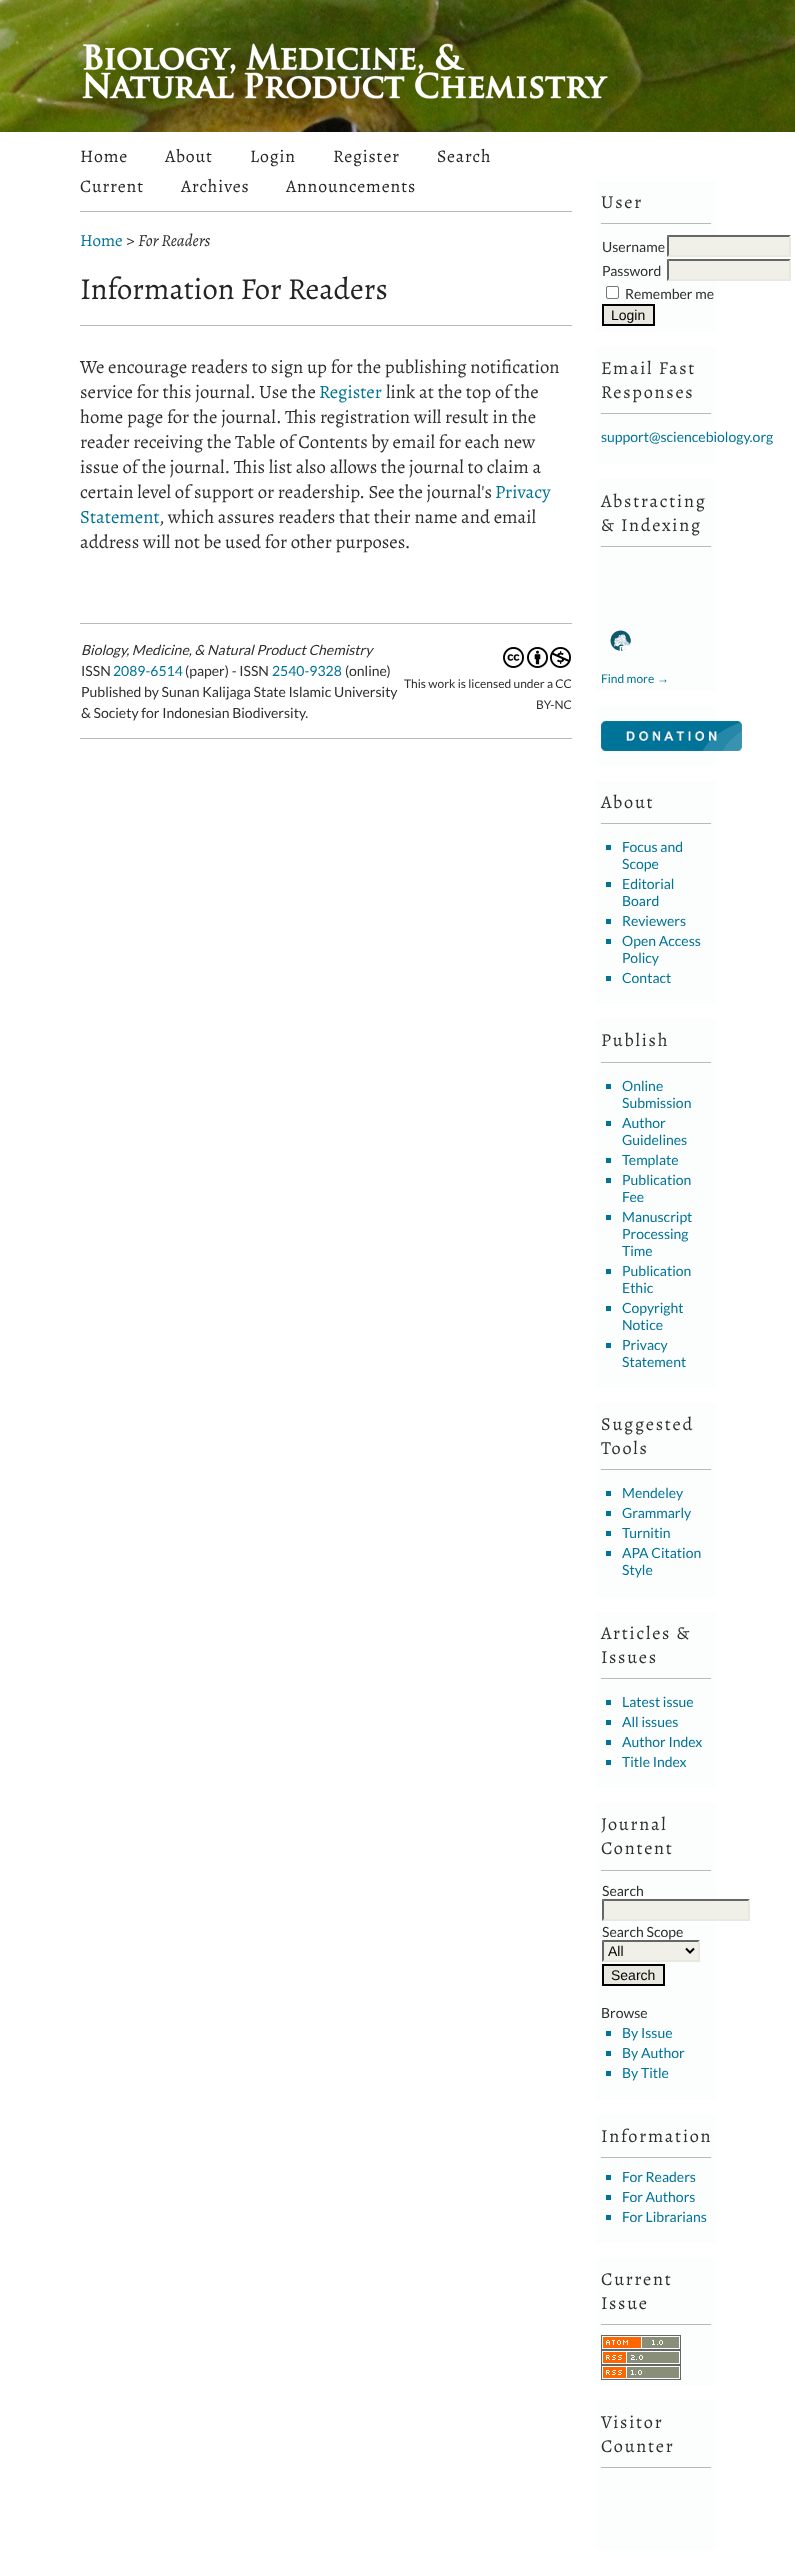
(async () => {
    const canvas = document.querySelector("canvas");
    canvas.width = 795;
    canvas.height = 2558;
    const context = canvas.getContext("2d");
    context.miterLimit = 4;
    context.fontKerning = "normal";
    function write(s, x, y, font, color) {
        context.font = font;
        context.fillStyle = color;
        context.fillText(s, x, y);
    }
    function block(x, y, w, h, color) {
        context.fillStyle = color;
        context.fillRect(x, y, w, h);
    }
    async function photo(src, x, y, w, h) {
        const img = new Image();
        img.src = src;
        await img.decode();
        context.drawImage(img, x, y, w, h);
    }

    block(0, 0, 795, 2558, "rgb(255, 255, 255)");
    await photo("media/1.png", 0, 0, 795, 132);
    await photo("media/2.png", 82, 43, 526, 56);
    block(80, 211, 492, 1, "rgb(185, 185, 185)");
    context.letterSpacing = "0.9px";
    write("Home", 80, 162, "17.75px Alegreya", "rgb(36, 36, 36)");
    write("About", 165, 162, "17.75px Alegreya", "rgb(36, 36, 36)");
    write("Login", 250, 162, "17.75px Alegreya", "rgb(36, 36, 36)");
    write("Register", 333, 162, "17.75px Alegreya", "rgb(36, 36, 36)");
    write("Search", 437, 162, "17.75px Alegreya", "rgb(36, 36, 36)");
    write("Current", 80, 192, "17.75px Alegreya", "rgb(36, 36, 36)");
    write("Archives", 181, 192, "17.75px Alegreya", "rgb(36, 36, 36)");
    write("Announcements", 286, 192, "17.75px Alegreya", "rgb(36, 36, 36)");
    context.letterSpacing = "0px";
    write("Home", 80, 246, "17px Alegreya", "rgb(0, 115, 152)");
    write(">", 126, 246, "17px Alegreya", "rgb(46, 46, 46)");
    write("For Readers", 138, 246, "italic 17px Alegreya", "rgb(46, 46, 46)");
    write("Information For Readers", 80, 299, "30.6px Alegreya", "rgb(36, 36, 36)");
    block(80, 325, 492, 1, "rgb(185, 185, 185)");
    write("We encourage readers to sign up for the publishing notification", 80, 373, "18.7px Alegreya", "rgb(46, 46, 46)");
    write("service for this journal. Use the", 80, 398, "18.7px Alegreya", "rgb(46, 46, 46)");
    write("Register", 319, 398, "18.7px Alegreya", "rgb(0, 115, 152)");
    write("link at the top of the", 386, 398, "18.7px Alegreya", "rgb(46, 46, 46)");
    write("home page for the journal. This registration will result in the", 80, 423, "18.7px Alegreya", "rgb(46, 46, 46)");
    write("reader receiving the Table of Contents by email for each new", 80, 448, "18.7px Alegreya", "rgb(46, 46, 46)");
    write("issue of the journal. This list also allows the journal to claim a", 80, 473, "18.7px Alegreya", "rgb(46, 46, 46)");
    write("certain level of support or readership. See the journal's", 80, 498, "18.7px Alegreya", "rgb(46, 46, 46)");
    write("Privacy", 495, 498, "18.7px Alegreya", "rgb(0, 115, 152)");
    write("Statement", 80, 523, "18.7px Alegreya", "rgb(0, 115, 152)");
    write(", which assures readers that their name and email", 159, 523, "18.7px Alegreya", "rgb(46, 46, 46)");
    write("address will not be used for other purposes.", 80, 548, "18.7px Alegreya", "rgb(46, 46, 46)");
    block(80, 623, 492, 1, "rgb(185, 185, 185)");
    block(80, 738, 492, 1, "rgb(185, 185, 185)");
    write("Biology, Medicine, & Natural Product Chemistry", 81, 655, "italic 14px Lato", "rgb(46, 46, 46)");
    write("ISSN", 81, 676, "14px Lato", "rgb(46, 46, 46)");
    write("2089-6514", 113, 676, "14px Lato", "rgb(0, 115, 152)");
    write("(paper) - ISSN", 185, 676, "14px Lato", "rgb(46, 46, 46)");
    write("2540-9328", 272, 676, "14px Lato", "rgb(0, 115, 152)");
    write("(online)", 345, 676, "14px Lato", "rgb(46, 46, 46)");
    write("Published by Sunan Kalijaga State Islamic University", 81, 697, "14px Lato", "rgb(46, 46, 46)");
    write("& Society for Indonesian Biodiversity.", 81, 718, "14px Lato", "rgb(46, 46, 46)");
    await photo("media/3.png", 503, 647, 21, 21);
    await photo("media/4.png", 527, 647, 21, 21);
    await photo("media/5.png", 550, 647, 21, 21);
    write("This work is licensed under a CC", 404, 688, "12px Lato", "rgb(46, 46, 46)");
    write("BY-NC", 536, 709, "12px Lato", "rgb(46, 46, 46)");
    block(596, 181, 120, 151, "rgb(252, 253, 253)");
    block(601, 223, 110, 1, "rgb(185, 185, 185)");
    context.letterSpacing = "1.75px";
    write("User", 601, 208, "18.25px Alegreya", "rgb(46, 46, 46)");
    context.letterSpacing = "0px";
    write("Username", 602, 252, "14px Lato", "rgb(46, 46, 46)");
    block(667, 235, 124, 22, "rgb(240, 240, 232)");
    context.fillStyle = "rgb(102, 102, 102)";
    context.beginPath();
    context.moveTo(667, 235);
    context.lineTo(791, 235);
    context.lineTo(789, 237);
    context.lineTo(669, 237);
    context.closePath();
    context.fill();
    context.fillStyle = "rgb(232, 232, 225)";
    context.beginPath();
    context.moveTo(791, 235);
    context.lineTo(791, 257);
    context.lineTo(789, 255);
    context.lineTo(789, 237);
    context.closePath();
    context.fill();
    context.beginPath();
    context.moveTo(791, 257);
    context.lineTo(667, 257);
    context.lineTo(669, 255);
    context.lineTo(789, 255);
    context.closePath();
    context.fill();
    context.fillStyle = "rgb(102, 102, 102)";
    context.beginPath();
    context.moveTo(667, 257);
    context.lineTo(667, 235);
    context.lineTo(669, 237);
    context.lineTo(669, 255);
    context.closePath();
    context.fill();
    write("Password", 602, 276, "14px Lato", "rgb(46, 46, 46)");
    block(667, 259, 124, 22, "rgb(240, 240, 232)");
    context.fillStyle = "rgb(102, 102, 102)";
    context.beginPath();
    context.moveTo(667, 259);
    context.lineTo(791, 259);
    context.lineTo(789, 261);
    context.lineTo(669, 261);
    context.closePath();
    context.fill();
    context.fillStyle = "rgb(232, 232, 225)";
    context.beginPath();
    context.moveTo(791, 259);
    context.lineTo(791, 281);
    context.lineTo(789, 279);
    context.lineTo(789, 261);
    context.closePath();
    context.fill();
    context.beginPath();
    context.moveTo(791, 281);
    context.lineTo(667, 281);
    context.lineTo(669, 279);
    context.lineTo(789, 279);
    context.closePath();
    context.fill();
    context.fillStyle = "rgb(102, 102, 102)";
    context.beginPath();
    context.moveTo(667, 281);
    context.lineTo(667, 259);
    context.lineTo(669, 261);
    context.lineTo(669, 279);
    context.closePath();
    context.fill();
    context.fillStyle = "rgb(255, 255, 255)";
    context.beginPath();
    context.roundRect(606.5, 286.5, 12, 12, 1.5);
    context.fill();
    context.strokeStyle = "rgb(118, 118, 118)";
    context.stroke();
    write("Remember me", 625, 299, "14px Lato", "rgb(46, 46, 46)");
    context.fillStyle = "rgb(232, 232, 225)";
    context.beginPath();
    context.rect(603, 305, 51, 20);
    context.fill();
    context.strokeStyle = "rgb(0, 0, 0)";
    context.lineWidth = 2;
    context.stroke();
    write("Login", 611, 320, "14px Liberation Sans", "rgb(0, 0, 0)");
    block(596, 347, 120, 117, "rgb(252, 253, 253)");
    block(601, 413, 110, 1, "rgb(185, 185, 185)");
    context.letterSpacing = "1.75px";
    write("Email Fast", 601, 374, "18.25px Alegreya", "rgb(46, 46, 46)");
    write("Responses", 601, 398, "18.25px Alegreya", "rgb(46, 46, 46)");
    context.letterSpacing = "0px";
    write("support@sciencebiology.org", 601, 442, "14px Lato", "rgb(0, 115, 152)");
    block(596, 479, 120, 212, "rgb(252, 253, 253)");
    block(601, 546, 110, 1, "rgb(185, 185, 185)");
    context.letterSpacing = "1.75px";
    write("Abstracting", 601, 507, "18.25px Alegreya", "rgb(46, 46, 46)");
    write("& Indexing", 601, 531, "18.25px Alegreya", "rgb(46, 46, 46)");
    await photo("media/6.png", 610, 630, 21, 21);
    context.letterSpacing = "0px";
    write("Find more", 601, 683, "12px Lato", "rgb(0, 115, 152)");
    write("→", 657, 683, "12px Liberation Sans", "rgb(0, 115, 152)");
    block(596, 706, 120, 60, "rgb(252, 253, 253)");
    await photo("media/7.png", 601, 721, 141, 30);
    block(596, 781, 120, 223, "rgb(252, 253, 253)");
    block(601, 823, 110, 1, "rgb(185, 185, 185)");
    context.letterSpacing = "1.75px";
    write("About", 601, 808, "18.25px Alegreya", "rgb(46, 46, 46)");
    block(606, 845, 5, 5, "rgb(0, 115, 152)");
    context.letterSpacing = "0px";
    write("Focus and", 622, 852, "14px Lato", "rgb(0, 115, 152)");
    write("Scope", 622, 869, "14px Lato", "rgb(0, 115, 152)");
    block(606, 882, 5, 5, "rgb(0, 115, 152)");
    write("Editorial", 622, 889, "14px Lato", "rgb(0, 115, 152)");
    write("Board", 622, 906, "14px Lato", "rgb(0, 115, 152)");
    block(606, 919, 5, 5, "rgb(0, 115, 152)");
    write("Reviewers", 622, 926, "14px Lato", "rgb(0, 115, 152)");
    block(606, 939, 5, 5, "rgb(0, 115, 152)");
    write("Open Access", 622, 946, "14px Lato", "rgb(0, 115, 152)");
    write("Policy", 622, 963, "14px Lato", "rgb(0, 115, 152)");
    block(606, 976, 5, 5, "rgb(0, 115, 152)");
    write("Contact", 622, 983, "14px Lato", "rgb(0, 115, 152)");
    block(596, 1019, 120, 369, "rgb(252, 253, 253)");
    block(601, 1062, 110, 1, "rgb(185, 185, 185)");
    context.letterSpacing = "1.75px";
    write("Publish", 601, 1046, "18.25px Alegreya", "rgb(46, 46, 46)");
    block(606, 1084, 5, 5, "rgb(0, 115, 152)");
    context.letterSpacing = "0px";
    write("Online", 622, 1091, "14px Lato", "rgb(0, 115, 152)");
    write("Submission", 622, 1108, "14px Lato", "rgb(0, 115, 152)");
    block(606, 1121, 5, 5, "rgb(0, 115, 152)");
    write("Author", 622, 1128, "14px Lato", "rgb(0, 115, 152)");
    write("Guidelines", 622, 1145, "14px Lato", "rgb(0, 115, 152)");
    block(606, 1158, 5, 5, "rgb(0, 115, 152)");
    write("Template", 622, 1165, "14px Lato", "rgb(0, 115, 152)");
    block(606, 1178, 5, 5, "rgb(0, 115, 152)");
    write("Publication", 622, 1185, "14px Lato", "rgb(0, 115, 152)");
    write("Fee", 622, 1202, "14px Lato", "rgb(0, 115, 152)");
    block(606, 1215, 5, 5, "rgb(0, 115, 152)");
    write("Manuscript", 622, 1222, "14px Lato", "rgb(0, 115, 152)");
    write("Processing", 622, 1239, "14px Lato", "rgb(0, 115, 152)");
    write("Time", 622, 1256, "14px Lato", "rgb(0, 115, 152)");
    block(606, 1269, 5, 5, "rgb(0, 115, 152)");
    write("Publication", 622, 1276, "14px Lato", "rgb(0, 115, 152)");
    write("Ethic", 622, 1293, "14px Lato", "rgb(0, 115, 152)");
    block(606, 1306, 5, 5, "rgb(0, 115, 152)");
    write("Copyright", 622, 1313, "14px Lato", "rgb(0, 115, 152)");
    write("Notice", 622, 1330, "14px Lato", "rgb(0, 115, 152)");
    block(606, 1343, 5, 5, "rgb(0, 115, 152)");
    write("Privacy", 622, 1350, "14px Lato", "rgb(0, 115, 152)");
    write("Statement", 622, 1367, "14px Lato", "rgb(0, 115, 152)");
    block(596, 1403, 120, 194, "rgb(252, 253, 253)");
    block(601, 1469, 110, 1, "rgb(185, 185, 185)");
    context.letterSpacing = "1.75px";
    write("Suggested", 601, 1430, "18.25px Alegreya", "rgb(46, 46, 46)");
    write("Tools", 601, 1454, "18.25px Alegreya", "rgb(46, 46, 46)");
    block(606, 1491, 5, 5, "rgb(0, 115, 152)");
    context.letterSpacing = "0px";
    write("Mendeley", 622, 1498, "14px Lato", "rgb(0, 115, 152)");
    block(606, 1511, 5, 5, "rgb(0, 115, 152)");
    write("Grammarly", 622, 1518, "14px Lato", "rgb(0, 115, 152)");
    block(606, 1531, 5, 5, "rgb(0, 115, 152)");
    write("Turnitin", 622, 1538, "14px Lato", "rgb(0, 115, 152)");
    block(606, 1551, 5, 5, "rgb(0, 115, 152)");
    write("APA Citation", 622, 1558, "14px Lato", "rgb(0, 115, 152)");
    write("Style", 622, 1575, "14px Lato", "rgb(0, 115, 152)");
    block(596, 1612, 120, 176, "rgb(252, 253, 253)");
    block(601, 1678, 110, 1, "rgb(185, 185, 185)");
    context.letterSpacing = "1.75px";
    write("Articles &", 601, 1639, "18.25px Alegreya", "rgb(46, 46, 46)");
    write("Issues", 601, 1663, "18.25px Alegreya", "rgb(46, 46, 46)");
    block(606, 1700, 5, 5, "rgb(0, 115, 152)");
    context.letterSpacing = "0px";
    write("Latest issue", 622, 1707, "14px Lato", "rgb(0, 115, 152)");
    block(606, 1720, 5, 5, "rgb(0, 115, 152)");
    write("All issues", 622, 1727, "14px Lato", "rgb(0, 115, 152)");
    block(606, 1740, 5, 5, "rgb(0, 115, 152)");
    write("Author Index", 622, 1747, "14px Lato", "rgb(0, 115, 152)");
    block(606, 1760, 5, 5, "rgb(0, 115, 152)");
    write("Title Index", 622, 1767, "14px Lato", "rgb(0, 115, 152)");
    block(596, 1803, 120, 297, "rgb(252, 253, 253)");
    block(601, 1870, 110, 1, "rgb(185, 185, 185)");
    context.letterSpacing = "1.75px";
    write("Journal", 601, 1830, "18.25px Alegreya", "rgb(46, 46, 46)");
    write("Content", 601, 1854, "18.25px Alegreya", "rgb(46, 46, 46)");
    context.letterSpacing = "0px";
    write("Search", 602, 1896, "14px Lato", "rgb(46, 46, 46)");
    block(602, 1899, 148, 22, "rgb(240, 240, 232)");
    context.fillStyle = "rgb(102, 102, 102)";
    context.beginPath();
    context.moveTo(602, 1899);
    context.lineTo(750, 1899);
    context.lineTo(748, 1901);
    context.lineTo(604, 1901);
    context.closePath();
    context.fill();
    context.fillStyle = "rgb(232, 232, 225)";
    context.beginPath();
    context.moveTo(750, 1899);
    context.lineTo(750, 1921);
    context.lineTo(748, 1919);
    context.lineTo(748, 1901);
    context.closePath();
    context.fill();
    context.beginPath();
    context.moveTo(750, 1921);
    context.lineTo(602, 1921);
    context.lineTo(604, 1919);
    context.lineTo(748, 1919);
    context.closePath();
    context.fill();
    context.fillStyle = "rgb(102, 102, 102)";
    context.beginPath();
    context.moveTo(602, 1921);
    context.lineTo(602, 1899);
    context.lineTo(604, 1901);
    context.lineTo(604, 1919);
    context.closePath();
    context.fill();
    write("Search Scope", 602, 1937, "14px Lato", "rgb(46, 46, 46)");
    block(602, 1940, 98, 22, "rgb(240, 240, 232)");
    context.fillStyle = "rgb(102, 102, 102)";
    context.beginPath();
    context.moveTo(602, 1940);
    context.lineTo(700, 1940);
    context.lineTo(698, 1942);
    context.lineTo(604, 1942);
    context.closePath();
    context.fill();
    context.fillStyle = "rgb(232, 232, 225)";
    context.beginPath();
    context.moveTo(700, 1940);
    context.lineTo(700, 1962);
    context.lineTo(698, 1960);
    context.lineTo(698, 1942);
    context.closePath();
    context.fill();
    context.beginPath();
    context.moveTo(700, 1962);
    context.lineTo(602, 1962);
    context.lineTo(604, 1960);
    context.lineTo(698, 1960);
    context.closePath();
    context.fill();
    context.fillStyle = "rgb(102, 102, 102)";
    context.beginPath();
    context.moveTo(602, 1962);
    context.lineTo(602, 1940);
    context.lineTo(604, 1942);
    context.lineTo(604, 1960);
    context.closePath();
    context.fill();
    context.beginPath();
    context.moveTo(686, 1948.5);
    context.lineTo(690, 1952.5);
    context.lineTo(694, 1948.5);
    context.stroke();
    write("All", 608, 1956, "14px Liberation Sans", "rgb(0, 0, 0)");
    context.fillStyle = "rgb(232, 232, 225)";
    context.beginPath();
    context.rect(603, 1965, 61, 20);
    context.fill();
    context.stroke();
    write("Search", 611, 1980, "14px Liberation Sans", "rgb(0, 0, 0)");
    write("Browse", 601, 2018, "14px Lato", "rgb(46, 46, 46)");
    block(606, 2031, 5, 5, "rgb(0, 115, 152)");
    write("By Issue", 622, 2038, "14px Lato", "rgb(0, 115, 152)");
    block(606, 2051, 5, 5, "rgb(0, 115, 152)");
    write("By Author", 622, 2058, "14px Lato", "rgb(0, 115, 152)");
    block(606, 2071, 5, 5, "rgb(0, 115, 152)");
    write("By Title", 622, 2078, "14px Lato", "rgb(0, 115, 152)");
    block(596, 2115, 120, 128, "rgb(252, 253, 253)");
    block(601, 2157, 110, 1, "rgb(185, 185, 185)");
    context.letterSpacing = "1.75px";
    write("Information", 601, 2142, "18.25px Alegreya", "rgb(46, 46, 46)");
    block(606, 2175, 5, 5, "rgb(0, 115, 152)");
    context.letterSpacing = "0px";
    write("For Readers", 622, 2182, "14px Lato", "rgb(0, 115, 152)");
    block(606, 2195, 5, 5, "rgb(0, 115, 152)");
    write("For Authors", 622, 2202, "14px Lato", "rgb(0, 115, 152)");
    block(606, 2215, 5, 5, "rgb(0, 115, 152)");
    write("For Librarians", 622, 2222, "14px Lato", "rgb(0, 115, 152)");
    block(596, 2258, 120, 127, "rgb(252, 253, 253)");
    block(601, 2324, 110, 1, "rgb(185, 185, 185)");
    context.letterSpacing = "1.75px";
    write("Current", 601, 2285, "18.25px Alegreya", "rgb(46, 46, 46)");
    write("Issue", 601, 2309, "18.25px Alegreya", "rgb(46, 46, 46)");
    await photo("media/8.png", 601, 2335, 80, 15);
    await photo("media/9.png", 601, 2350, 80, 15);
    await photo("media/10.png", 601, 2365, 80, 15);
    block(596, 2400, 120, 150, "rgb(252, 253, 253)");
    block(601, 2467, 110, 1, "rgb(185, 185, 185)");
    write("Visitor", 601, 2428, "18.25px Alegreya", "rgb(46, 46, 46)");
    write("Counter", 601, 2452, "18.25px Alegreya", "rgb(46, 46, 46)");
})();
